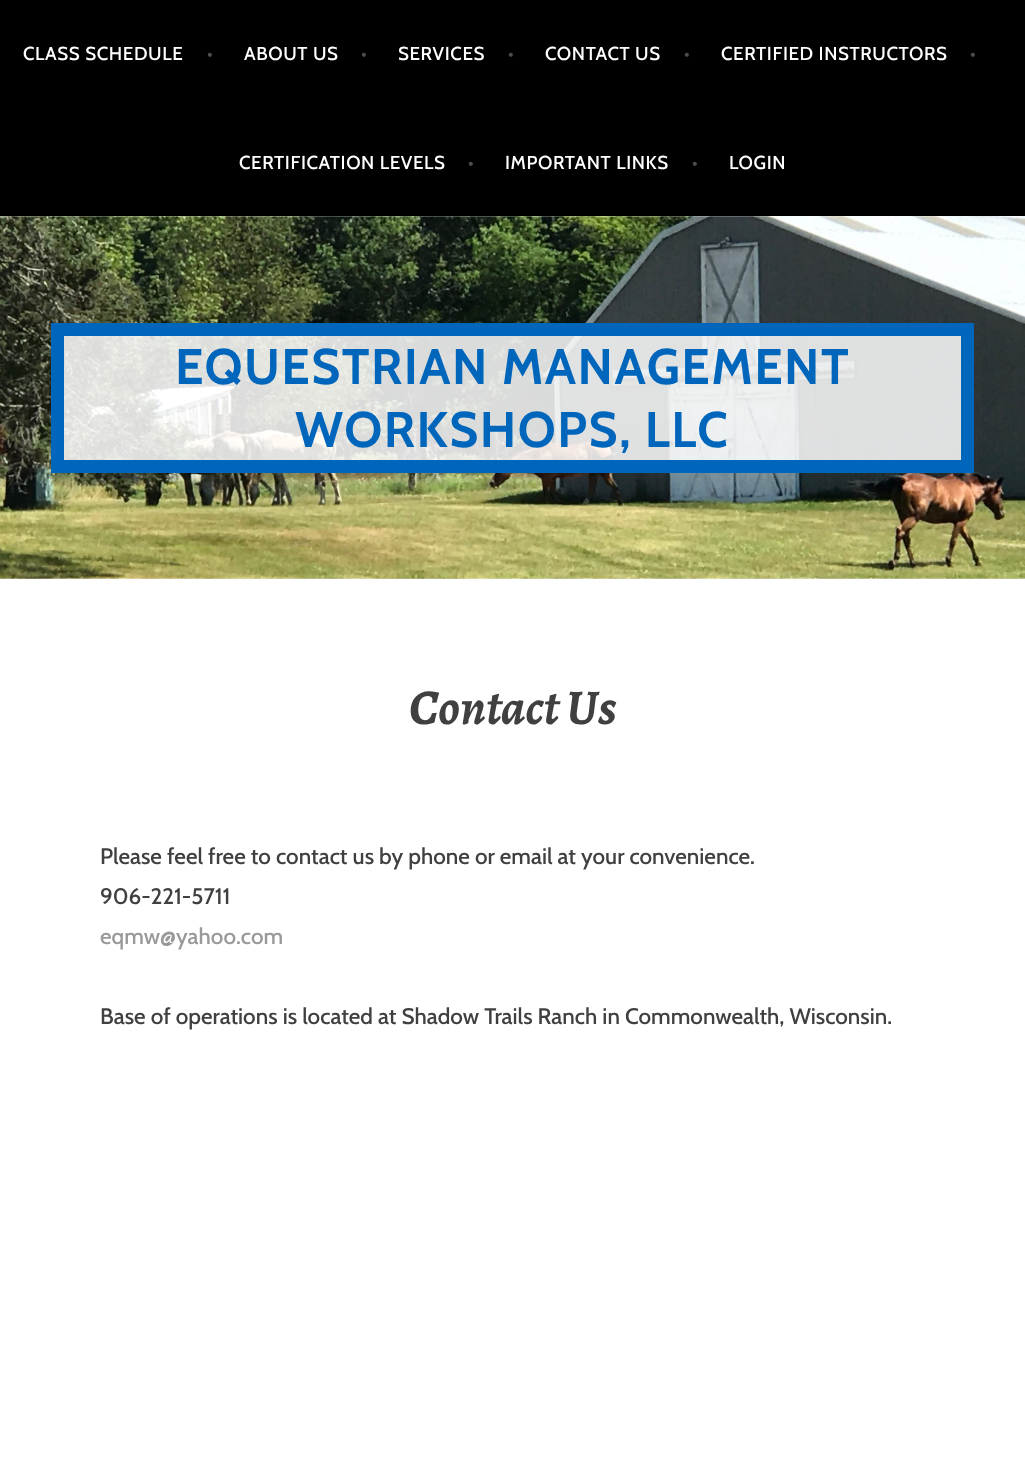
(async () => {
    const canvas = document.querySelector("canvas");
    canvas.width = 1025;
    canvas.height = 1467;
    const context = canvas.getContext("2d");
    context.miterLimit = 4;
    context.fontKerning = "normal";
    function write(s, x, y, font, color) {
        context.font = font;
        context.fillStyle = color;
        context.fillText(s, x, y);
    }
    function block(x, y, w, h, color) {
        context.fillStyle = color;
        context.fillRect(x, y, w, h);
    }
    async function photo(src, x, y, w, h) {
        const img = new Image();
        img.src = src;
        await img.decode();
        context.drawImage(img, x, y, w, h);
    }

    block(0, 0, 1025, 1467, "rgb(255, 255, 255)");
    block(0, 0, 1025, 216, "rgb(0, 0, 0)");
    context.letterSpacing = "0.6px";
    write("CLASS SCHEDULE", 23, 60, "500 18.75px Cabin", "rgb(255, 255, 255)");
    write("•", 207, 60, "500 18.75px Cabin", "rgb(77, 77, 77)");
    write("ABOUT US", 244, 60, "500 18.75px Cabin", "rgb(255, 255, 255)");
    write("•", 361, 60, "500 18.75px Cabin", "rgb(77, 77, 77)");
    write("SERVICES", 398, 60, "500 18.75px Cabin", "rgb(255, 255, 255)");
    write("•", 508, 60, "500 18.75px Cabin", "rgb(77, 77, 77)");
    write("CONTACT US", 545, 60, "500 18.75px Cabin", "rgb(255, 255, 255)");
    write("•", 684, 60, "500 18.75px Cabin", "rgb(77, 77, 77)");
    write("CERTIFIED INSTRUCTORS", 721, 60, "500 18.75px Cabin", "rgb(255, 255, 255)");
    write("•", 970, 60, "500 18.75px Cabin", "rgb(77, 77, 77)");
    write("CERTIFICATION LEVELS", 239, 169, "500 18.75px Cabin", "rgb(255, 255, 255)");
    write("•", 468, 169, "500 18.75px Cabin", "rgb(77, 77, 77)");
    write("IMPORTANT LINKS", 505, 169, "500 18.75px Cabin", "rgb(255, 255, 255)");
    write("•", 692, 169, "500 18.75px Cabin", "rgb(77, 77, 77)");
    write("LOGIN", 729, 169, "500 18.75px Cabin", "rgb(255, 255, 255)");
    await photo("media/1.png", 0, 216, 1025, 363);
    context.fillStyle = "rgba(255, 255, 255, 0.85)";
    context.beginPath();
    context.rect(57.5, 329.5, 910, 137);
    context.fill();
    context.strokeStyle = "rgb(0, 102, 187)";
    context.lineWidth = 13;
    context.stroke();
    context.letterSpacing = "1.5px";
    write("EQUESTRIAN MANAGEMENT", 175, 384, "bold 50px Cabin", "rgb(0, 102, 187)");
    write("WORKSHOPS, LLC", 295, 447, "bold 50px Cabin", "rgb(0, 102, 187)");
    context.letterSpacing = "0px";
    write("Contact Us", 409, 724, "italic bold 50px Alegreya", "rgb(64, 64, 64)");
    write("Please feel free to contact us by phone or email at your convenience.", 100, 864, "500 22.5px Cabin", "rgb(64, 64, 64)");
    write("906-221-5711", 100, 904, "500 22.5px Cabin", "rgb(64, 64, 64)");
    write("eqmw@yahoo.com", 100, 944, "500 22.5px Cabin", "rgb(153, 153, 153)");
    write("Base of operations is located at Shadow Trails Ranch in Commonwealth, Wisconsin.", 100, 1024, "500 22.5px Cabin", "rgb(64, 64, 64)");
})();
